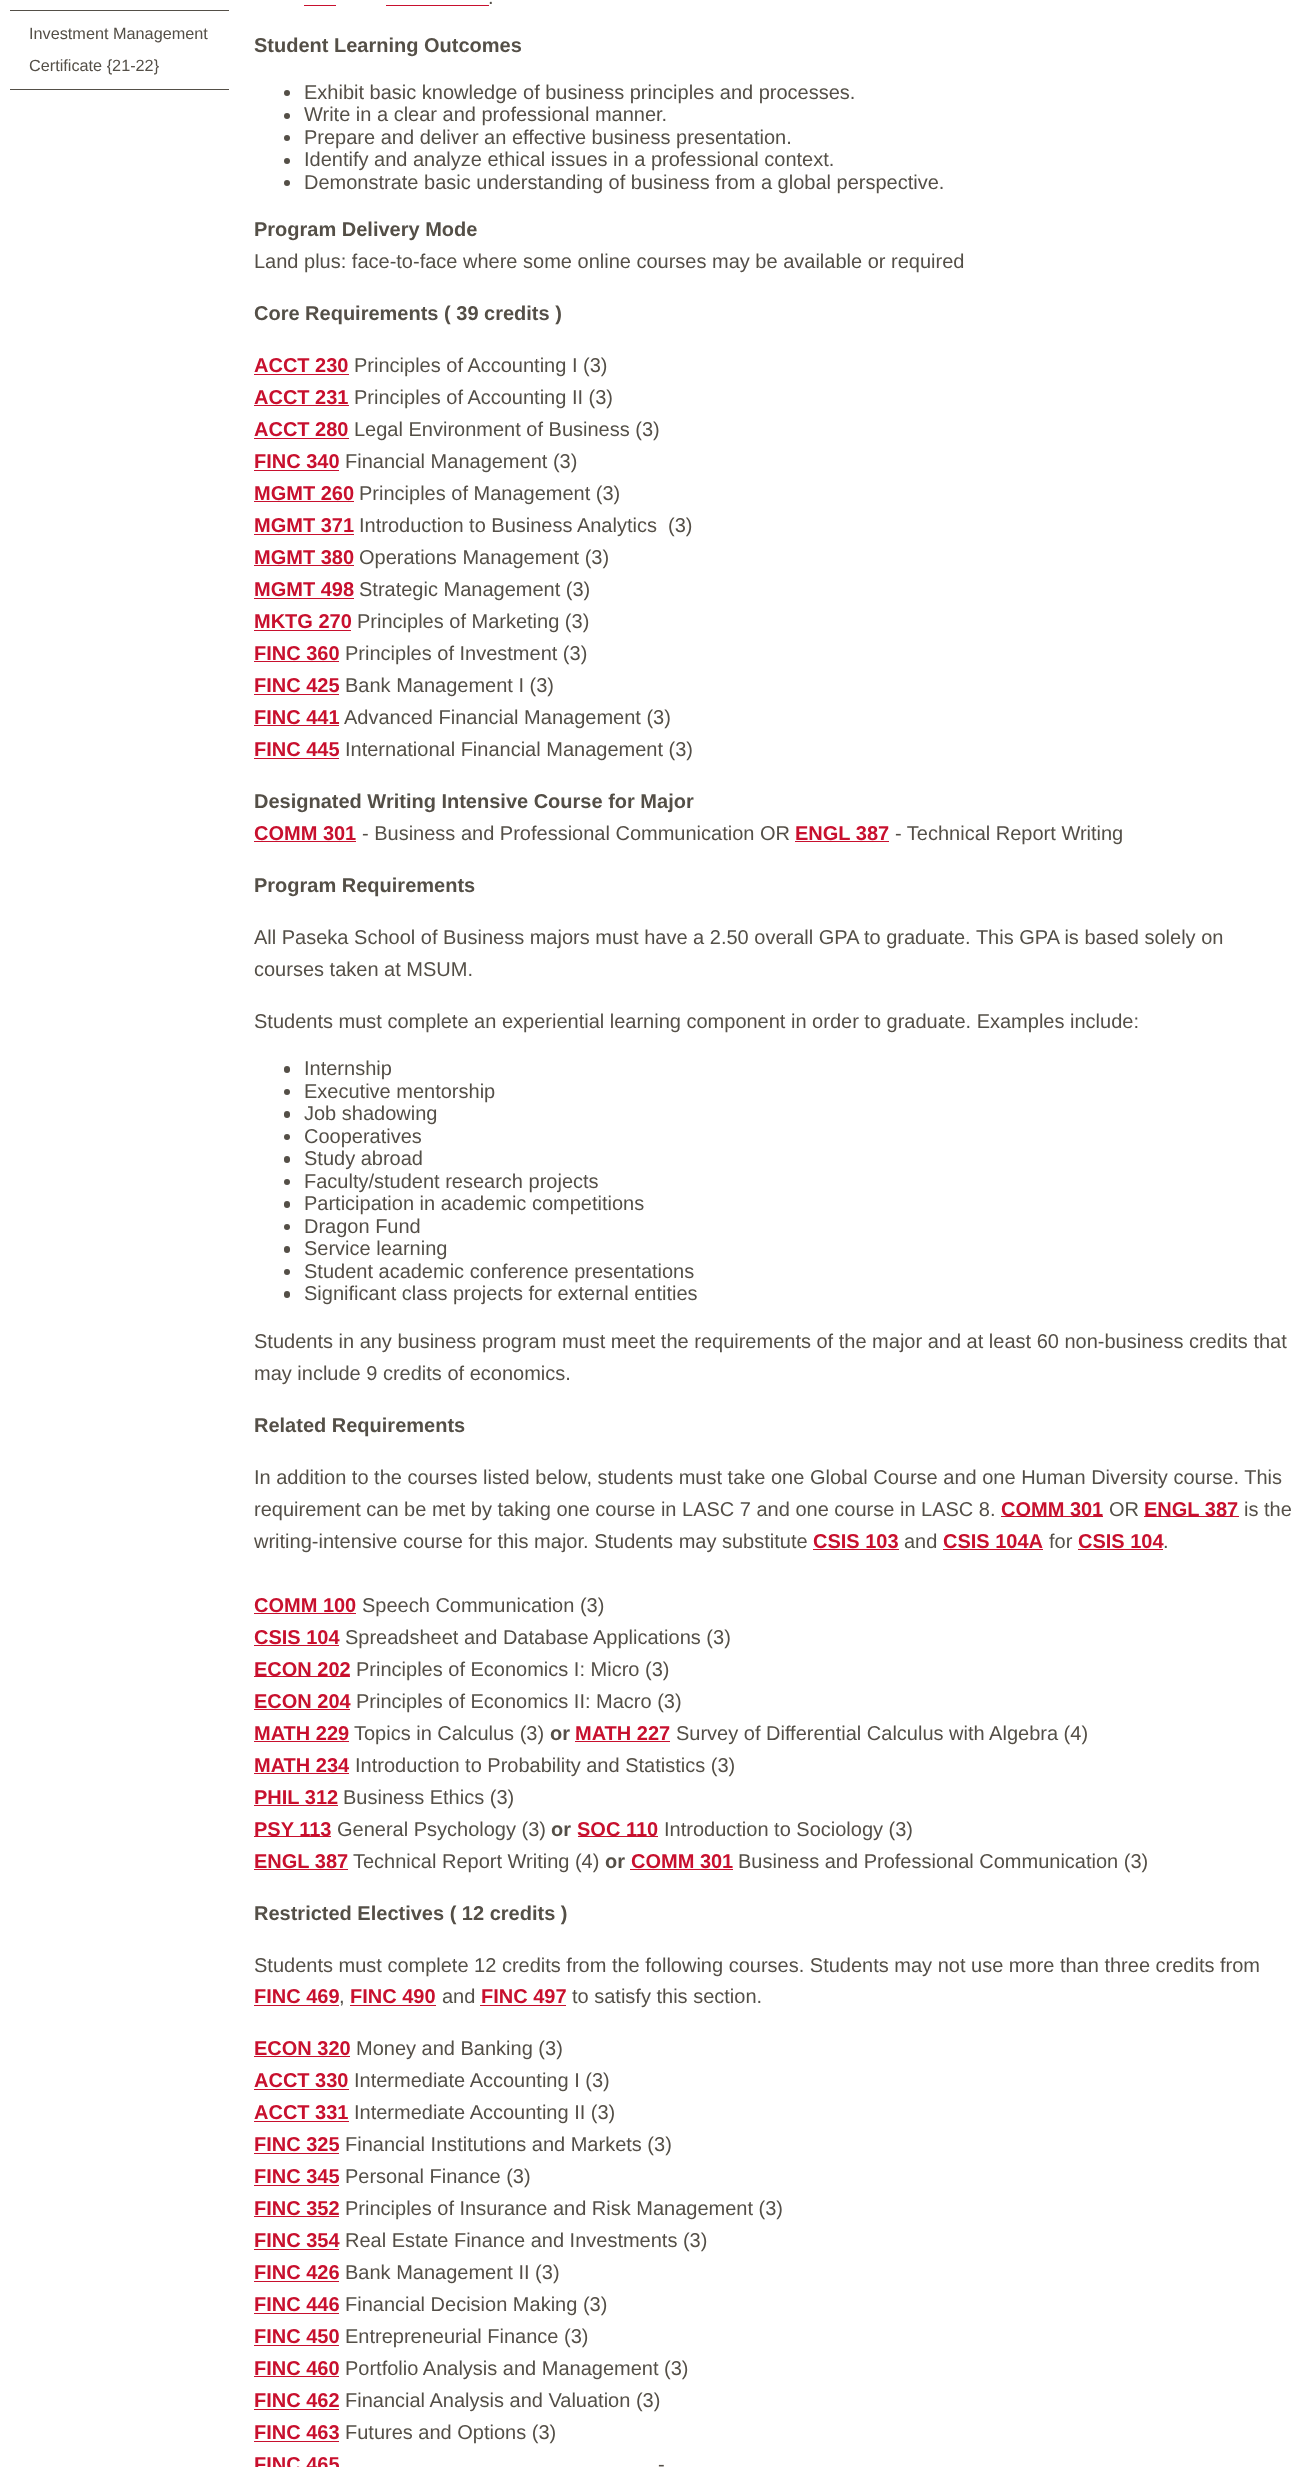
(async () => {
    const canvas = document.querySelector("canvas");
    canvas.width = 1302;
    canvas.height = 2467;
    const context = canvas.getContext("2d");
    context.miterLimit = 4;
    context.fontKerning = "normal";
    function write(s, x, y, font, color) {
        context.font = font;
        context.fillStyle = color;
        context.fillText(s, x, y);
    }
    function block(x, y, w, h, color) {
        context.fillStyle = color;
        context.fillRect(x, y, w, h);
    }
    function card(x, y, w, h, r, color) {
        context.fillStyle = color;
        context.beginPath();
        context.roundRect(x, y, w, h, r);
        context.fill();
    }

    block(0, 0, 1302, 2467, "rgb(255, 255, 255)");
    block(10, 10, 219, 1, "rgb(84, 79, 71)");
    block(10, 89, 219, 1, "rgb(84, 79, 71)");
    write("Investment Management", 29, 39, "16.25px Liberation Sans", "rgb(84, 79, 71)");
    write("Certificate {21-22}", 29, 71, "16.25px Liberation Sans", "rgb(84, 79, 71)");
    write(".", 488, 4, "20px Liberation Sans", "rgb(84, 79, 71)");
    block(304, 5, 32, 1, "rgb(200, 16, 46)");
    block(386, 5, 103, 1, "rgb(200, 16, 46)");
    write("Student Learning Outcomes", 254, 52, "bold 20px Liberation Sans", "rgb(84, 79, 71)");
    context.beginPath();
    context.arc(287, 93, 3, 0, Math.PI * 2);
    context.fill();
    write("Exhibit basic knowledge of business principles and processes.", 304, 99, "20px Liberation Sans", "rgb(84, 79, 71)");
    context.beginPath();
    context.arc(287, 116, 3, 0, Math.PI * 2);
    context.fill();
    write("Write in a clear and professional manner.", 304, 121, "20px Liberation Sans", "rgb(84, 79, 71)");
    context.beginPath();
    context.arc(287, 138, 3, 0, Math.PI * 2);
    context.fill();
    write("Prepare and deliver an effective business presentation.", 304, 144, "20px Liberation Sans", "rgb(84, 79, 71)");
    context.beginPath();
    context.arc(287, 161, 3, 0, Math.PI * 2);
    context.fill();
    write("Identify and analyze ethical issues in a professional context.", 304, 166, "20px Liberation Sans", "rgb(84, 79, 71)");
    context.beginPath();
    context.arc(287, 183, 3, 0, Math.PI * 2);
    context.fill();
    write("Demonstrate basic understanding of business from a global perspective.", 304, 189, "20px Liberation Sans", "rgb(84, 79, 71)");
    write("Program Delivery Mode", 254, 236, "bold 20px Liberation Sans", "rgb(84, 79, 71)");
    write("Land plus: face-to-face where some online courses may be available or required", 254, 268, "20px Liberation Sans", "rgb(84, 79, 71)");
    write("Core Requirements ( 39 credits )", 254, 320, "bold 20px Liberation Sans", "rgb(84, 79, 71)");
    write("ACCT 230", 254, 372, "bold 20px Liberation Sans", "rgb(200, 16, 46)");
    block(254, 374, 95, 1, "rgb(200, 16, 46)");
    write("Principles of Accounting I (3)", 354, 372, "20px Liberation Sans", "rgb(84, 79, 71)");
    write("ACCT 231", 254, 404, "bold 20px Liberation Sans", "rgb(200, 16, 46)");
    block(254, 405, 95, 1, "rgb(200, 16, 46)");
    write("Principles of Accounting II (3)", 354, 404, "20px Liberation Sans", "rgb(84, 79, 71)");
    write("ACCT 280", 254, 436, "bold 20px Liberation Sans", "rgb(200, 16, 46)");
    block(254, 438, 95, 1, "rgb(200, 16, 46)");
    write("Legal Environment of Business (3)", 354, 436, "20px Liberation Sans", "rgb(84, 79, 71)");
    write("FINC 340", 254, 468, "bold 20px Liberation Sans", "rgb(200, 16, 46)");
    block(254, 470, 85, 1, "rgb(200, 16, 46)");
    write("Financial Management (3)", 345, 468, "20px Liberation Sans", "rgb(84, 79, 71)");
    write("MGMT 260", 254, 500, "bold 20px Liberation Sans", "rgb(200, 16, 46)");
    block(254, 501, 100, 1, "rgb(200, 16, 46)");
    write("Principles of Management (3)", 359, 500, "20px Liberation Sans", "rgb(84, 79, 71)");
    write("MGMT 371", 254, 532, "bold 20px Liberation Sans", "rgb(200, 16, 46)");
    block(254, 534, 100, 1, "rgb(200, 16, 46)");
    write("Introduction to Business Analytics", 359, 532, "20px Liberation Sans", "rgb(84, 79, 71)");
    write("(3)", 668, 532, "20px Liberation Sans", "rgb(84, 79, 71)");
    write("MGMT 380", 254, 564, "bold 20px Liberation Sans", "rgb(200, 16, 46)");
    block(254, 565, 100, 1, "rgb(200, 16, 46)");
    write("Operations Management (3)", 359, 564, "20px Liberation Sans", "rgb(84, 79, 71)");
    write("MGMT 498", 254, 596, "bold 20px Liberation Sans", "rgb(200, 16, 46)");
    block(254, 598, 100, 1, "rgb(200, 16, 46)");
    write("Strategic Management (3)", 359, 596, "20px Liberation Sans", "rgb(84, 79, 71)");
    write("MKTG 270", 254, 628, "bold 20px Liberation Sans", "rgb(200, 16, 46)");
    block(254, 630, 97, 1, "rgb(200, 16, 46)");
    write("Principles of Marketing (3)", 357, 628, "20px Liberation Sans", "rgb(84, 79, 71)");
    write("FINC 360", 254, 660, "bold 20px Liberation Sans", "rgb(200, 16, 46)");
    block(254, 661, 85, 1, "rgb(200, 16, 46)");
    write("Principles of Investment (3)", 345, 660, "20px Liberation Sans", "rgb(84, 79, 71)");
    write("FINC 425", 254, 692, "bold 20px Liberation Sans", "rgb(200, 16, 46)");
    block(254, 694, 85, 1, "rgb(200, 16, 46)");
    write("Bank Management I (3)", 345, 692, "20px Liberation Sans", "rgb(84, 79, 71)");
    write("FINC 441", 254, 724, "bold 20px Liberation Sans", "rgb(200, 16, 46)");
    block(254, 725, 85, 1, "rgb(200, 16, 46)");
    write("Advanced Financial Management (3)", 344, 724, "20px Liberation Sans", "rgb(84, 79, 71)");
    write("FINC 445", 254, 756, "bold 20px Liberation Sans", "rgb(200, 16, 46)");
    block(254, 758, 85, 1, "rgb(200, 16, 46)");
    write("International Financial Management (3)", 345, 756, "20px Liberation Sans", "rgb(84, 79, 71)");
    write("Designated Writing Intensive Course for Major", 254, 808, "bold 20px Liberation Sans", "rgb(84, 79, 71)");
    write("COMM 301", 254, 840, "bold 20px Liberation Sans", "rgb(200, 16, 46)");
    block(254, 841, 102, 1, "rgb(200, 16, 46)");
    write("- Business and Professional Communication OR", 362, 840, "20px Liberation Sans", "rgb(84, 79, 71)");
    write("ENGL 387", 795, 840, "bold 20px Liberation Sans", "rgb(200, 16, 46)");
    block(795, 841, 94, 1, "rgb(200, 16, 46)");
    write("- Technical Report Writing", 895, 840, "20px Liberation Sans", "rgb(84, 79, 71)");
    write("Program Requirements", 254, 892, "bold 20px Liberation Sans", "rgb(84, 79, 71)");
    write("All Paseka School of Business majors must have a 2.50 overall GPA to graduate. This GPA is based solely on", 254, 944, "20px Liberation Sans", "rgb(84, 79, 71)");
    write("courses taken at MSUM.", 254, 976, "20px Liberation Sans", "rgb(84, 79, 71)");
    write("Students must complete an experiential learning component in order to graduate. Examples include:", 254, 1028, "20px Liberation Sans", "rgb(84, 79, 71)");
    card(284, 1066, 6, 7, 3, "rgb(84, 79, 71)");
    write("Internship", 304, 1075, "20px Liberation Sans", "rgb(84, 79, 71)");
    context.beginPath();
    context.arc(287, 1092, 3, 0, Math.PI * 2);
    context.fill();
    write("Executive mentorship", 304, 1098, "20px Liberation Sans", "rgb(84, 79, 71)");
    card(284, 1111, 6, 7, 3, "rgb(84, 79, 71)");
    write("Job shadowing", 304, 1120, "20px Liberation Sans", "rgb(84, 79, 71)");
    context.beginPath();
    context.arc(287, 1137, 3, 0, Math.PI * 2);
    context.fill();
    write("Cooperatives", 304, 1143, "20px Liberation Sans", "rgb(84, 79, 71)");
    card(284, 1156, 6, 7, 3, "rgb(84, 79, 71)");
    write("Study abroad", 304, 1165, "20px Liberation Sans", "rgb(84, 79, 71)");
    context.beginPath();
    context.arc(287, 1182, 3, 0, Math.PI * 2);
    context.fill();
    write("Faculty/student research projects", 304, 1188, "20px Liberation Sans", "rgb(84, 79, 71)");
    card(284, 1201, 6, 7, 3, "rgb(84, 79, 71)");
    write("Participation in academic competitions", 304, 1210, "20px Liberation Sans", "rgb(84, 79, 71)");
    context.beginPath();
    context.arc(287, 1227, 3, 0, Math.PI * 2);
    context.fill();
    write("Dragon Fund", 304, 1233, "20px Liberation Sans", "rgb(84, 79, 71)");
    card(284, 1246, 6, 7, 3, "rgb(84, 79, 71)");
    write("Service learning", 304, 1255, "20px Liberation Sans", "rgb(84, 79, 71)");
    context.beginPath();
    context.arc(287, 1272, 3, 0, Math.PI * 2);
    context.fill();
    write("Student academic conference presentations", 304, 1278, "20px Liberation Sans", "rgb(84, 79, 71)");
    card(284, 1291, 6, 7, 3, "rgb(84, 79, 71)");
    write("Significant class projects for external entities", 304, 1300, "20px Liberation Sans", "rgb(84, 79, 71)");
    write("Students in any business program must meet the requirements of the major and at least 60 non-business credits that", 254, 1348, "20px Liberation Sans", "rgb(84, 79, 71)");
    write("may include 9 credits of economics.", 254, 1380, "20px Liberation Sans", "rgb(84, 79, 71)");
    write("Related Requirements", 254, 1432, "bold 20px Liberation Sans", "rgb(84, 79, 71)");
    write("In addition to the courses listed below, students must take one Global Course and one Human Diversity course. This", 254, 1484, "20px Liberation Sans", "rgb(84, 79, 71)");
    write("requirement can be met by taking one course in LASC 7 and one course in LASC 8.", 254, 1516, "20px Liberation Sans", "rgb(84, 79, 71)");
    block(1001, 1516, 102, 1, "rgb(200, 16, 46)");
    write("COMM 301", 1001, 1516, "bold 20px Liberation Sans", "rgb(200, 16, 46)");
    write("OR", 1109, 1516, "20px Liberation Sans", "rgb(84, 79, 71)");
    block(1144, 1516, 95, 1, "rgb(200, 16, 46)");
    write("ENGL 387", 1144, 1516, "bold 20px Liberation Sans", "rgb(200, 16, 46)");
    write("is the", 1244, 1516, "20px Liberation Sans", "rgb(84, 79, 71)");
    write("writing-intensive course for this major. Students may substitute", 254, 1548, "20px Liberation Sans", "rgb(84, 79, 71)");
    write("CSIS 103", 813, 1548, "bold 20px Liberation Sans", "rgb(200, 16, 46)");
    block(813, 1549, 86, 1, "rgb(200, 16, 46)");
    write("and", 904, 1548, "20px Liberation Sans", "rgb(84, 79, 71)");
    write("CSIS 104A", 943, 1548, "bold 20px Liberation Sans", "rgb(200, 16, 46)");
    block(943, 1549, 100, 1, "rgb(200, 16, 46)");
    write("for", 1049, 1548, "20px Liberation Sans", "rgb(84, 79, 71)");
    write("CSIS 104", 1078, 1548, "bold 20px Liberation Sans", "rgb(200, 16, 46)");
    block(1078, 1549, 85, 1, "rgb(200, 16, 46)");
    write(".", 1163, 1548, "20px Liberation Sans", "rgb(84, 79, 71)");
    write("COMM 100", 254, 1612, "bold 20px Liberation Sans", "rgb(200, 16, 46)");
    block(254, 1613, 102, 1, "rgb(200, 16, 46)");
    write("Speech Communication (3)", 362, 1612, "20px Liberation Sans", "rgb(84, 79, 71)");
    write("CSIS 104", 254, 1644, "bold 20px Liberation Sans", "rgb(200, 16, 46)");
    block(254, 1645, 85, 1, "rgb(200, 16, 46)");
    write("Spreadsheet and Database Applications (3)", 345, 1644, "20px Liberation Sans", "rgb(84, 79, 71)");
    block(254, 1676, 96, 1, "rgb(200, 16, 46)");
    write("ECON 202", 254, 1676, "bold 20px Liberation Sans", "rgb(200, 16, 46)");
    write("Principles of Economics I: Micro (3)", 356, 1676, "20px Liberation Sans", "rgb(84, 79, 71)");
    write("ECON 204", 254, 1708, "bold 20px Liberation Sans", "rgb(200, 16, 46)");
    block(254, 1709, 96, 1, "rgb(200, 16, 46)");
    write("Principles of Economics II: Macro (3)", 356, 1708, "20px Liberation Sans", "rgb(84, 79, 71)");
    write("MATH 229", 254, 1740, "bold 20px Liberation Sans", "rgb(200, 16, 46)");
    block(254, 1741, 95, 1, "rgb(200, 16, 46)");
    write("Topics in Calculus (3)", 354, 1740, "20px Liberation Sans", "rgb(84, 79, 71)");
    write("or", 550, 1740, "bold 20px Liberation Sans", "rgb(84, 79, 71)");
    write("MATH 227", 575, 1740, "bold 20px Liberation Sans", "rgb(200, 16, 46)");
    block(575, 1741, 95, 1, "rgb(200, 16, 46)");
    write("Survey of Differential Calculus with Algebra (4)", 676, 1740, "20px Liberation Sans", "rgb(84, 79, 71)");
    write("MATH 234", 254, 1772, "bold 20px Liberation Sans", "rgb(200, 16, 46)");
    block(254, 1773, 95, 1, "rgb(200, 16, 46)");
    write("Introduction to Probability and Statistics (3)", 355, 1772, "20px Liberation Sans", "rgb(84, 79, 71)");
    write("PHIL 312", 254, 1804, "bold 20px Liberation Sans", "rgb(200, 16, 46)");
    block(254, 1805, 84, 1, "rgb(200, 16, 46)");
    write("Business Ethics (3)", 343, 1804, "20px Liberation Sans", "rgb(84, 79, 71)");
    block(254, 1836, 77, 1, "rgb(200, 16, 46)");
    write("PSY 113", 254, 1836, "bold 20px Liberation Sans", "rgb(200, 16, 46)");
    write("General Psychology (3)", 337, 1836, "20px Liberation Sans", "rgb(84, 79, 71)");
    write("or", 551, 1836, "bold 20px Liberation Sans", "rgb(84, 79, 71)");
    block(578, 1836, 80, 1, "rgb(200, 16, 46)");
    write("SOC 110", 577, 1836, "bold 20px Liberation Sans", "rgb(200, 16, 46)");
    write("Introduction to Sociology (3)", 664, 1836, "20px Liberation Sans", "rgb(84, 79, 71)");
    write("ENGL 387", 254, 1868, "bold 20px Liberation Sans", "rgb(200, 16, 46)");
    block(254, 1869, 94, 1, "rgb(200, 16, 46)");
    write("Technical Report Writing (4)", 353, 1868, "20px Liberation Sans", "rgb(84, 79, 71)");
    write("or", 605, 1868, "bold 20px Liberation Sans", "rgb(84, 79, 71)");
    write("COMM 301", 631, 1868, "bold 20px Liberation Sans", "rgb(200, 16, 46)");
    block(630, 1869, 103, 1, "rgb(200, 16, 46)");
    write("Business and Professional Communication (3)", 738, 1868, "20px Liberation Sans", "rgb(84, 79, 71)");
    write("Restricted Electives ( 12 credits )", 254, 1920, "bold 20px Liberation Sans", "rgb(84, 79, 71)");
    write("Students must complete 12 credits from the following courses. Students may not use more than three credits from", 254, 1972, "20px Liberation Sans", "rgb(84, 79, 71)");
    write("FINC 469", 254, 2003, "bold 20px Liberation Sans", "rgb(200, 16, 46)");
    block(254, 2005, 85, 1, "rgb(200, 16, 46)");
    write(",", 339, 2003, "20px Liberation Sans", "rgb(84, 79, 71)");
    write("FINC 490", 350, 2003, "bold 20px Liberation Sans", "rgb(200, 16, 46)");
    block(350, 2005, 86, 1, "rgb(200, 16, 46)");
    write("and", 442, 2003, "20px Liberation Sans", "rgb(84, 79, 71)");
    write("FINC 497", 481, 2003, "bold 20px Liberation Sans", "rgb(200, 16, 46)");
    block(480, 2005, 86, 1, "rgb(200, 16, 46)");
    write("to satisfy this section.", 572, 2003, "20px Liberation Sans", "rgb(84, 79, 71)");
    write("ECON 320", 254, 2055, "bold 20px Liberation Sans", "rgb(200, 16, 46)");
    block(254, 2056, 96, 1, "rgb(200, 16, 46)");
    write("Money and Banking (3)", 356, 2055, "20px Liberation Sans", "rgb(84, 79, 71)");
    write("ACCT 330", 254, 2087, "bold 20px Liberation Sans", "rgb(200, 16, 46)");
    block(254, 2089, 95, 1, "rgb(200, 16, 46)");
    write("Intermediate Accounting I (3)", 354, 2087, "20px Liberation Sans", "rgb(84, 79, 71)");
    write("ACCT 331", 254, 2119, "bold 20px Liberation Sans", "rgb(200, 16, 46)");
    block(254, 2121, 95, 1, "rgb(200, 16, 46)");
    write("Intermediate Accounting II (3)", 354, 2119, "20px Liberation Sans", "rgb(84, 79, 71)");
    write("FINC 325", 254, 2151, "bold 20px Liberation Sans", "rgb(200, 16, 46)");
    block(254, 2153, 85, 1, "rgb(200, 16, 46)");
    write("Financial Institutions and Markets (3)", 345, 2151, "20px Liberation Sans", "rgb(84, 79, 71)");
    write("FINC 345", 254, 2183, "bold 20px Liberation Sans", "rgb(200, 16, 46)");
    block(254, 2185, 85, 1, "rgb(200, 16, 46)");
    write("Personal Finance (3)", 345, 2183, "20px Liberation Sans", "rgb(84, 79, 71)");
    write("FINC 352", 254, 2215, "bold 20px Liberation Sans", "rgb(200, 16, 46)");
    block(254, 2216, 85, 1, "rgb(200, 16, 46)");
    write("Principles of Insurance and Risk Management (3)", 345, 2215, "20px Liberation Sans", "rgb(84, 79, 71)");
    write("FINC 354", 254, 2247, "bold 20px Liberation Sans", "rgb(200, 16, 46)");
    block(254, 2249, 85, 1, "rgb(200, 16, 46)");
    write("Real Estate Finance and Investments (3)", 345, 2247, "20px Liberation Sans", "rgb(84, 79, 71)");
    write("FINC 426", 254, 2279, "bold 20px Liberation Sans", "rgb(200, 16, 46)");
    block(254, 2281, 85, 1, "rgb(200, 16, 46)");
    write("Bank Management II (3)", 345, 2279, "20px Liberation Sans", "rgb(84, 79, 71)");
    write("FINC 446", 254, 2311, "bold 20px Liberation Sans", "rgb(200, 16, 46)");
    block(254, 2313, 85, 1, "rgb(200, 16, 46)");
    write("Financial Decision Making (3)", 345, 2311, "20px Liberation Sans", "rgb(84, 79, 71)");
    write("FINC 450", 254, 2343, "bold 20px Liberation Sans", "rgb(200, 16, 46)");
    block(254, 2345, 85, 1, "rgb(200, 16, 46)");
    write("Entrepreneurial Finance (3)", 345, 2343, "20px Liberation Sans", "rgb(84, 79, 71)");
    write("FINC 460", 254, 2375, "bold 20px Liberation Sans", "rgb(200, 16, 46)");
    block(254, 2376, 85, 1, "rgb(200, 16, 46)");
    write("Portfolio Analysis and Management (3)", 345, 2375, "20px Liberation Sans", "rgb(84, 79, 71)");
    write("FINC 462", 254, 2407, "bold 20px Liberation Sans", "rgb(200, 16, 46)");
    block(254, 2409, 85, 1, "rgb(200, 16, 46)");
    write("Financial Analysis and Valuation (3)", 345, 2407, "20px Liberation Sans", "rgb(84, 79, 71)");
    write("FINC 463", 254, 2439, "bold 20px Liberation Sans", "rgb(200, 16, 46)");
    block(254, 2441, 85, 1, "rgb(200, 16, 46)");
    write("Futures and Options (3)", 345, 2439, "20px Liberation Sans", "rgb(84, 79, 71)");
    write("FINC 465", 254, 2471, "bold 20px Liberation Sans", "rgb(200, 16, 46)");
    write("-", 658, 2471, "20px Liberation Sans", "rgb(84, 79, 71)");
})();
